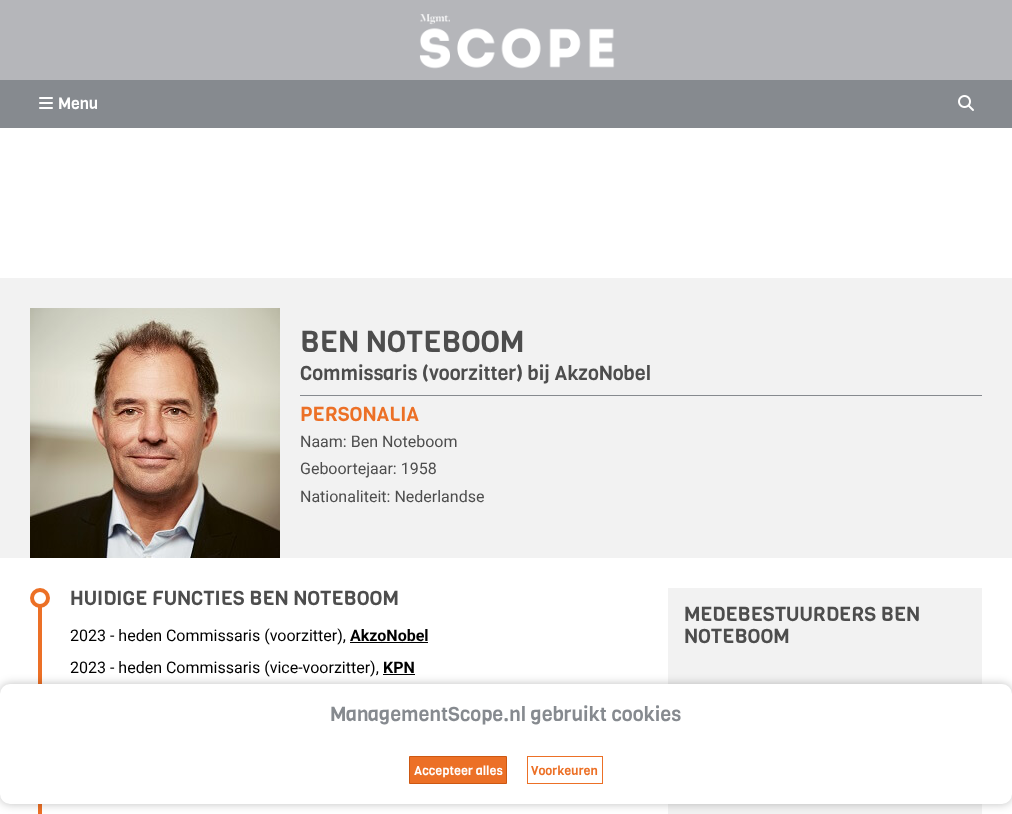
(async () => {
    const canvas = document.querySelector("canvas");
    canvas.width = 1012;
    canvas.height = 814;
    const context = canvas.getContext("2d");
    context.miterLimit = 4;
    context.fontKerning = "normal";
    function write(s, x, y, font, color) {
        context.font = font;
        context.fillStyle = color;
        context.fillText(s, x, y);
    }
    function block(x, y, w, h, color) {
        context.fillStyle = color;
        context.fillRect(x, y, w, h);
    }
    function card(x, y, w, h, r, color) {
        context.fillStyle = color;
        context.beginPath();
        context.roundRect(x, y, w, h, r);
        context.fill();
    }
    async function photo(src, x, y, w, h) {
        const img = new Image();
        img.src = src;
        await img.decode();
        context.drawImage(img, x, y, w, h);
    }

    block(0, 0, 1012, 814, "rgb(255, 255, 255)");
    block(0, 0, 1012, 80, "rgb(181, 182, 186)");
    await photo("media/1.png", 419, 14, 196, 55);
    block(0, 80, 1012, 48, "rgb(134, 138, 143)");
    await photo("media/2.png", 39, 97, 14, 12);
    write("Menu", 58, 109, "16px Viga", "rgb(255, 255, 255)");
    await photo("media/3.png", 958, 95, 16, 16);
    block(0, 278, 1012, 280, "rgb(242, 242, 242)");
    await photo("media/4.png", 30, 308, 250, 250);
    write("BEN NOTEBOOM", 300, 352, "30px Viga", "rgb(77, 77, 77)");
    write("Commissaris (voorzitter) bij AkzoNobel", 300, 380, "20px Viga", "rgb(77, 77, 77)");
    block(300, 395, 682, 1, "rgb(134, 138, 143)");
    write("PERSONALIA", 300, 421, "20px Viga", "rgb(236, 112, 38)");
    write("Naam: Ben Noteboom", 300, 447, "16px Roboto", "rgb(77, 77, 77)");
    write("Geboortejaar: 1958", 300, 474, "16px Roboto", "rgb(77, 77, 77)");
    write("Nationaliteit: Nederlandse", 300, 502, "16px Roboto", "rgb(77, 77, 77)");
    block(38, 603, 4, 211, "rgb(236, 112, 38)");
    context.fillStyle = "rgb(255, 255, 255)";
    context.beginPath();
    context.arc(40, 598, 8, 0, Math.PI * 2);
    context.fill();
    context.strokeStyle = "rgb(236, 112, 38)";
    context.lineWidth = 4;
    context.stroke();
    write("HUIDIGE FUNCTIES BEN NOTEBOOM", 70, 605, "20px Viga", "rgb(77, 77, 77)");
    write("2023 - heden Commissaris (voorzitter),", 70, 641, "16px Roboto", "rgb(0, 0, 0)");
    write("AkzoNobel", 350, 641, "bold 16px Roboto", "rgb(0, 0, 0)");
    block(350, 642, 78, 1, "rgb(0, 0, 0)");
    write("2023 - heden Commissaris (vice-voorzitter),", 70, 673, "16px Roboto", "rgb(0, 0, 0)");
    write("KPN", 383, 673, "bold 16px Roboto", "rgb(0, 0, 0)");
    block(383, 674, 32, 1, "rgb(0, 0, 0)");
    block(668, 588, 314, 226, "rgb(242, 242, 242)");
    write("MEDEBESTUURDERS BEN", 684, 621, "20px Viga", "rgb(77, 77, 77)");
    write("NOTEBOOM", 684, 643, "20px Viga", "rgb(77, 77, 77)");
    context.fillStyle = "rgba(0, 0, 0, 0.25)";
    context.filter = "blur(5px)";
    context.beginPath();
    context.roundRect(0, 684, 1012, 120, 10);
    context.fill();
    context.filter = "none";
    card(0, 684, 1012, 120, 10, "rgb(255, 255, 255)");
    write("ManagementScope.nl gebruikt cookies", 330, 721, "20px Viga", "rgb(134, 138, 143)");
    context.fillStyle = "rgb(236, 112, 38)";
    context.beginPath();
    context.rect(409.5, 756.5, 97, 27);
    context.fill();
    context.strokeStyle = "rgb(205, 88, 18)";
    context.lineWidth = 1;
    context.stroke();
    write("Accepteer alles", 414, 775, "12.75px Viga", "rgb(255, 255, 255)");
    context.strokeStyle = "rgb(236, 112, 38)";
    context.strokeRect(527.5, 756.5, 75, 27);
    write("Voorkeuren", 531, 775, "12.75px Viga", "rgb(236, 112, 38)");
})();
